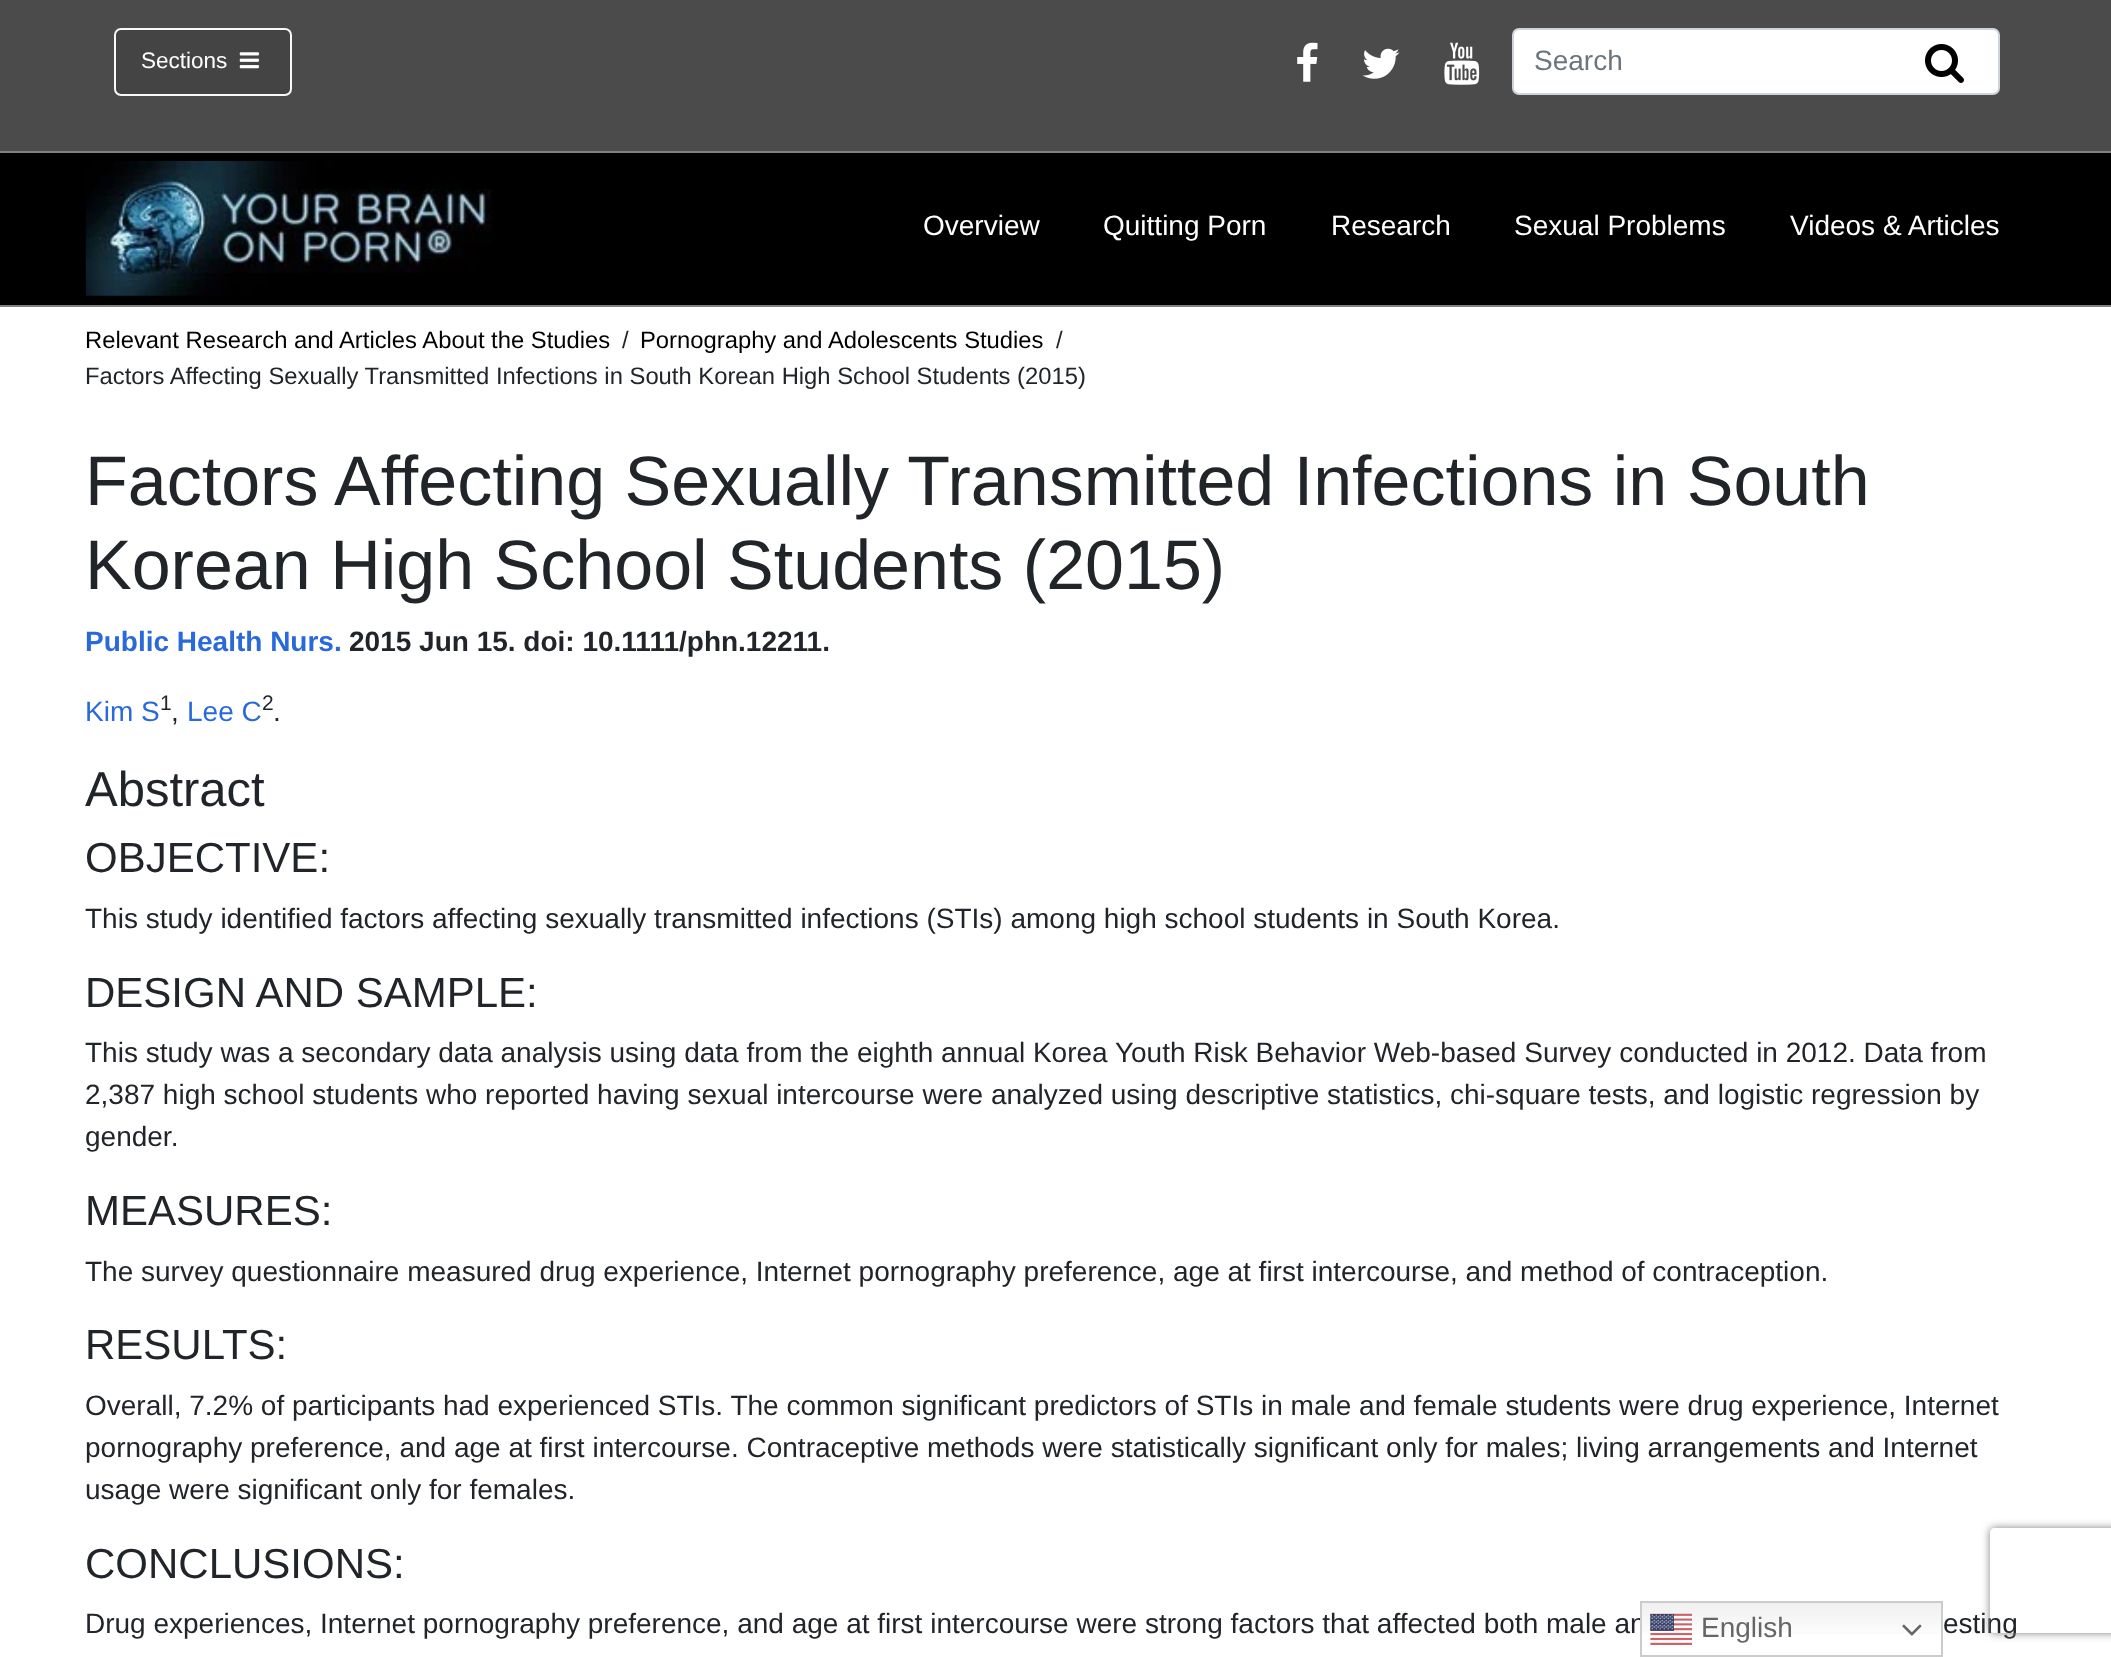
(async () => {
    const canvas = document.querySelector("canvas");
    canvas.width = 2111;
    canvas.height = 1657;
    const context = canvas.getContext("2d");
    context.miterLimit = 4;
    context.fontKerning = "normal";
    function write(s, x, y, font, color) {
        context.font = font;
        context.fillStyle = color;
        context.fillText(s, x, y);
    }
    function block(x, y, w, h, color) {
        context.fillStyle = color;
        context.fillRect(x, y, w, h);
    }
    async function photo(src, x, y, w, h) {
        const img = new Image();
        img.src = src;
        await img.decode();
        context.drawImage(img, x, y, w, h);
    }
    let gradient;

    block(0, 0, 2111, 1657, "rgb(255, 255, 255)");
    block(0, 0, 2111, 151, "rgb(75, 75, 75)");
    context.fillStyle = "rgb(68, 68, 68)";
    context.beginPath();
    context.roundRect(115, 29, 176, 66, 6);
    context.fill();
    context.strokeStyle = "rgb(248, 249, 250)";
    context.lineWidth = 2;
    context.stroke();
    write("Sections", 141, 68, "22.5px Liberation Sans", "rgb(255, 255, 255)");
    await photo("media/1.png", 239, 52, 20, 17);
    await photo("media/2.png", 1297, 42, 21, 40);
    await photo("media/3.png", 1362, 48, 38, 31);
    await photo("media/4.png", 1444, 42, 36, 43);
    context.beginPath();
    context.roundRect(1513, 29, 486, 65, 6);
    context.fill();
    context.strokeStyle = "rgb(206, 212, 218)";
    context.stroke();
    write("Search", 1534, 70, "28px Liberation Sans", "rgb(108, 117, 125)");
    await photo("media/5.png", 1925, 44, 39, 39);
    block(0, 153, 2111, 152, "rgb(0, 0, 0)");
    block(0, 151, 2111, 2, "rgb(128, 128, 128)");
    block(0, 305, 2111, 2, "rgb(128, 128, 128)");
    await photo("media/6.png", 85, 161, 408, 135);
    write("Overview", 923, 235, "28px Liberation Sans", "rgb(255, 255, 255)");
    write("Quitting Porn", 1103, 235, "28px Liberation Sans", "rgb(255, 255, 255)");
    write("Research", 1331, 235, "28px Liberation Sans", "rgb(255, 255, 255)");
    write("Sexual Problems", 1514, 235, "28px Liberation Sans", "rgb(255, 255, 255)");
    write("Videos & Articles", 1790, 235, "28px Liberation Sans", "rgb(255, 255, 255)");
    write("Relevant Research and Articles About the Studies", 85, 348, "23.8px Liberation Sans", "rgb(0, 0, 0)");
    write("/", 622, 348, "23.8px Liberation Sans", "rgb(33, 37, 41)");
    write("Pornography and Adolescents Studies", 640, 348, "23.8px Liberation Sans", "rgb(0, 0, 0)");
    write("/", 1056, 348, "23.8px Liberation Sans", "rgb(33, 37, 41)");
    write("Factors Affecting Sexually Transmitted Infections in South Korean High School Students (2015)", 85, 384, "23.8px Liberation Sans", "rgb(33, 37, 41)");
    write("Factors Affecting Sexually Transmitted Infections in South", 85, 505, "70px Liberation Sans", "rgb(33, 37, 41)");
    write("Korean High School Students (2015)", 85, 589, "70px Liberation Sans", "rgb(33, 37, 41)");
    write("Public Health Nurs.", 85, 651, "bold 28px Liberation Sans", "rgb(41, 105, 218)");
    write("2015 Jun 15. doi: 10.1111/phn.12211.", 349, 651, "bold 28px Liberation Sans", "rgb(33, 37, 41)");
    write("Kim S", 85, 721, "28px Liberation Sans", "rgb(41, 105, 218)");
    write("1", 160, 710, "21px Liberation Sans", "rgb(33, 37, 41)");
    write(",", 171, 721, "28px Liberation Sans", "rgb(33, 37, 41)");
    write("Lee C", 187, 721, "28px Liberation Sans", "rgb(41, 105, 218)");
    write("2", 262, 710, "21px Liberation Sans", "rgb(33, 37, 41)");
    write(".", 273, 721, "28px Liberation Sans", "rgb(33, 37, 41)");
    write("Abstract", 85, 806, "49px Liberation Sans", "rgb(33, 37, 41)");
    write("OBJECTIVE:", 85, 872, "42px Liberation Sans", "rgb(33, 37, 41)");
    write("This study identified factors affecting sexually transmitted infections (STIs) among high school students in South Korea.", 85, 928, "28px Liberation Sans", "rgb(33, 37, 41)");
    write("DESIGN AND SAMPLE:", 85, 1007, "42px Liberation Sans", "rgb(33, 37, 41)");
    write("This study was a secondary data analysis using data from the eighth annual Korea Youth Risk Behavior Web-based Survey conducted in 2012. Data from", 85, 1062, "28px Liberation Sans", "rgb(33, 37, 41)");
    write("2,387 high school students who reported having sexual intercourse were analyzed using descriptive statistics, chi-square tests, and logistic regression by", 85, 1104, "28px Liberation Sans", "rgb(33, 37, 41)");
    write("gender.", 85, 1146, "28px Liberation Sans", "rgb(33, 37, 41)");
    write("MEASURES:", 85, 1225, "42px Liberation Sans", "rgb(33, 37, 41)");
    write("The survey questionnaire measured drug experience, Internet pornography preference, age at first intercourse, and method of contraception.", 85, 1281, "28px Liberation Sans", "rgb(33, 37, 41)");
    write("RESULTS:", 85, 1359, "42px Liberation Sans", "rgb(33, 37, 41)");
    write("Overall, 7.2% of participants had experienced STIs. The common significant predictors of STIs in male and female students were drug experience, Internet", 85, 1415, "28px Liberation Sans", "rgb(33, 37, 41)");
    write("pornography preference, and age at first intercourse. Contraceptive methods were statistically significant only for males; living arrangements and Internet", 85, 1457, "28px Liberation Sans", "rgb(33, 37, 41)");
    write("usage were significant only for females.", 85, 1499, "28px Liberation Sans", "rgb(33, 37, 41)");
    write("CONCLUSIONS:", 85, 1578, "42px Liberation Sans", "rgb(33, 37, 41)");
    write("Drug experiences, Internet pornography preference, and age at first intercourse were strong factors that affected both male an", 85, 1633, "28px Liberation Sans", "rgb(33, 37, 41)");
    write("esting", 1943, 1633, "28px Liberation Sans", "rgb(33, 37, 41)");
    context.save();
    context.beginPath();
    context.moveTo(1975, 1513);
    context.lineTo(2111, 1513);
    context.lineTo(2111, 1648);
    context.lineTo(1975, 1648);
    context.closePath();
    context.moveTo(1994, 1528);
    context.lineTo(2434, 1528);
    context.bezierCurveTo(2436, 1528, 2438, 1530, 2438, 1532);
    context.lineTo(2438, 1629);
    context.bezierCurveTo(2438, 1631, 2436, 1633, 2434, 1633);
    context.lineTo(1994, 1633);
    context.bezierCurveTo(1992, 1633, 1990, 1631, 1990, 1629);
    context.lineTo(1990, 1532);
    context.bezierCurveTo(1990, 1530, 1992, 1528, 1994, 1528);
    context.closePath();
    context.clip("evenodd");
    context.fillStyle = "rgb(128, 128, 128)";
    context.filter = "blur(4.5px)";
    context.beginPath();
    context.roundRect(1990, 1528, 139, 105, 4);
    context.fill();
    context.filter = "none";
    context.restore();
    gradient = context.createLinearGradient(1791, 1601, 1791, 1657);
    gradient.addColorStop(0, "rgb(239, 239, 239)");
    gradient.addColorStop(0.7, "rgb(255, 255, 255)");
    context.fillStyle = gradient;
    context.fillRect(1642, 1603, 299, 31);
    context.strokeStyle = "rgb(204, 204, 204)";
    context.strokeRect(1641, 1602, 301, 54);
    await photo("media/7.png", 1650, 1613, 42, 32);
    write("English", 1701, 1637, "28px Liberation Sans", "rgb(102, 102, 102)");
    await photo("media/8.png", 1902, 1624, 20, 12);
})();
